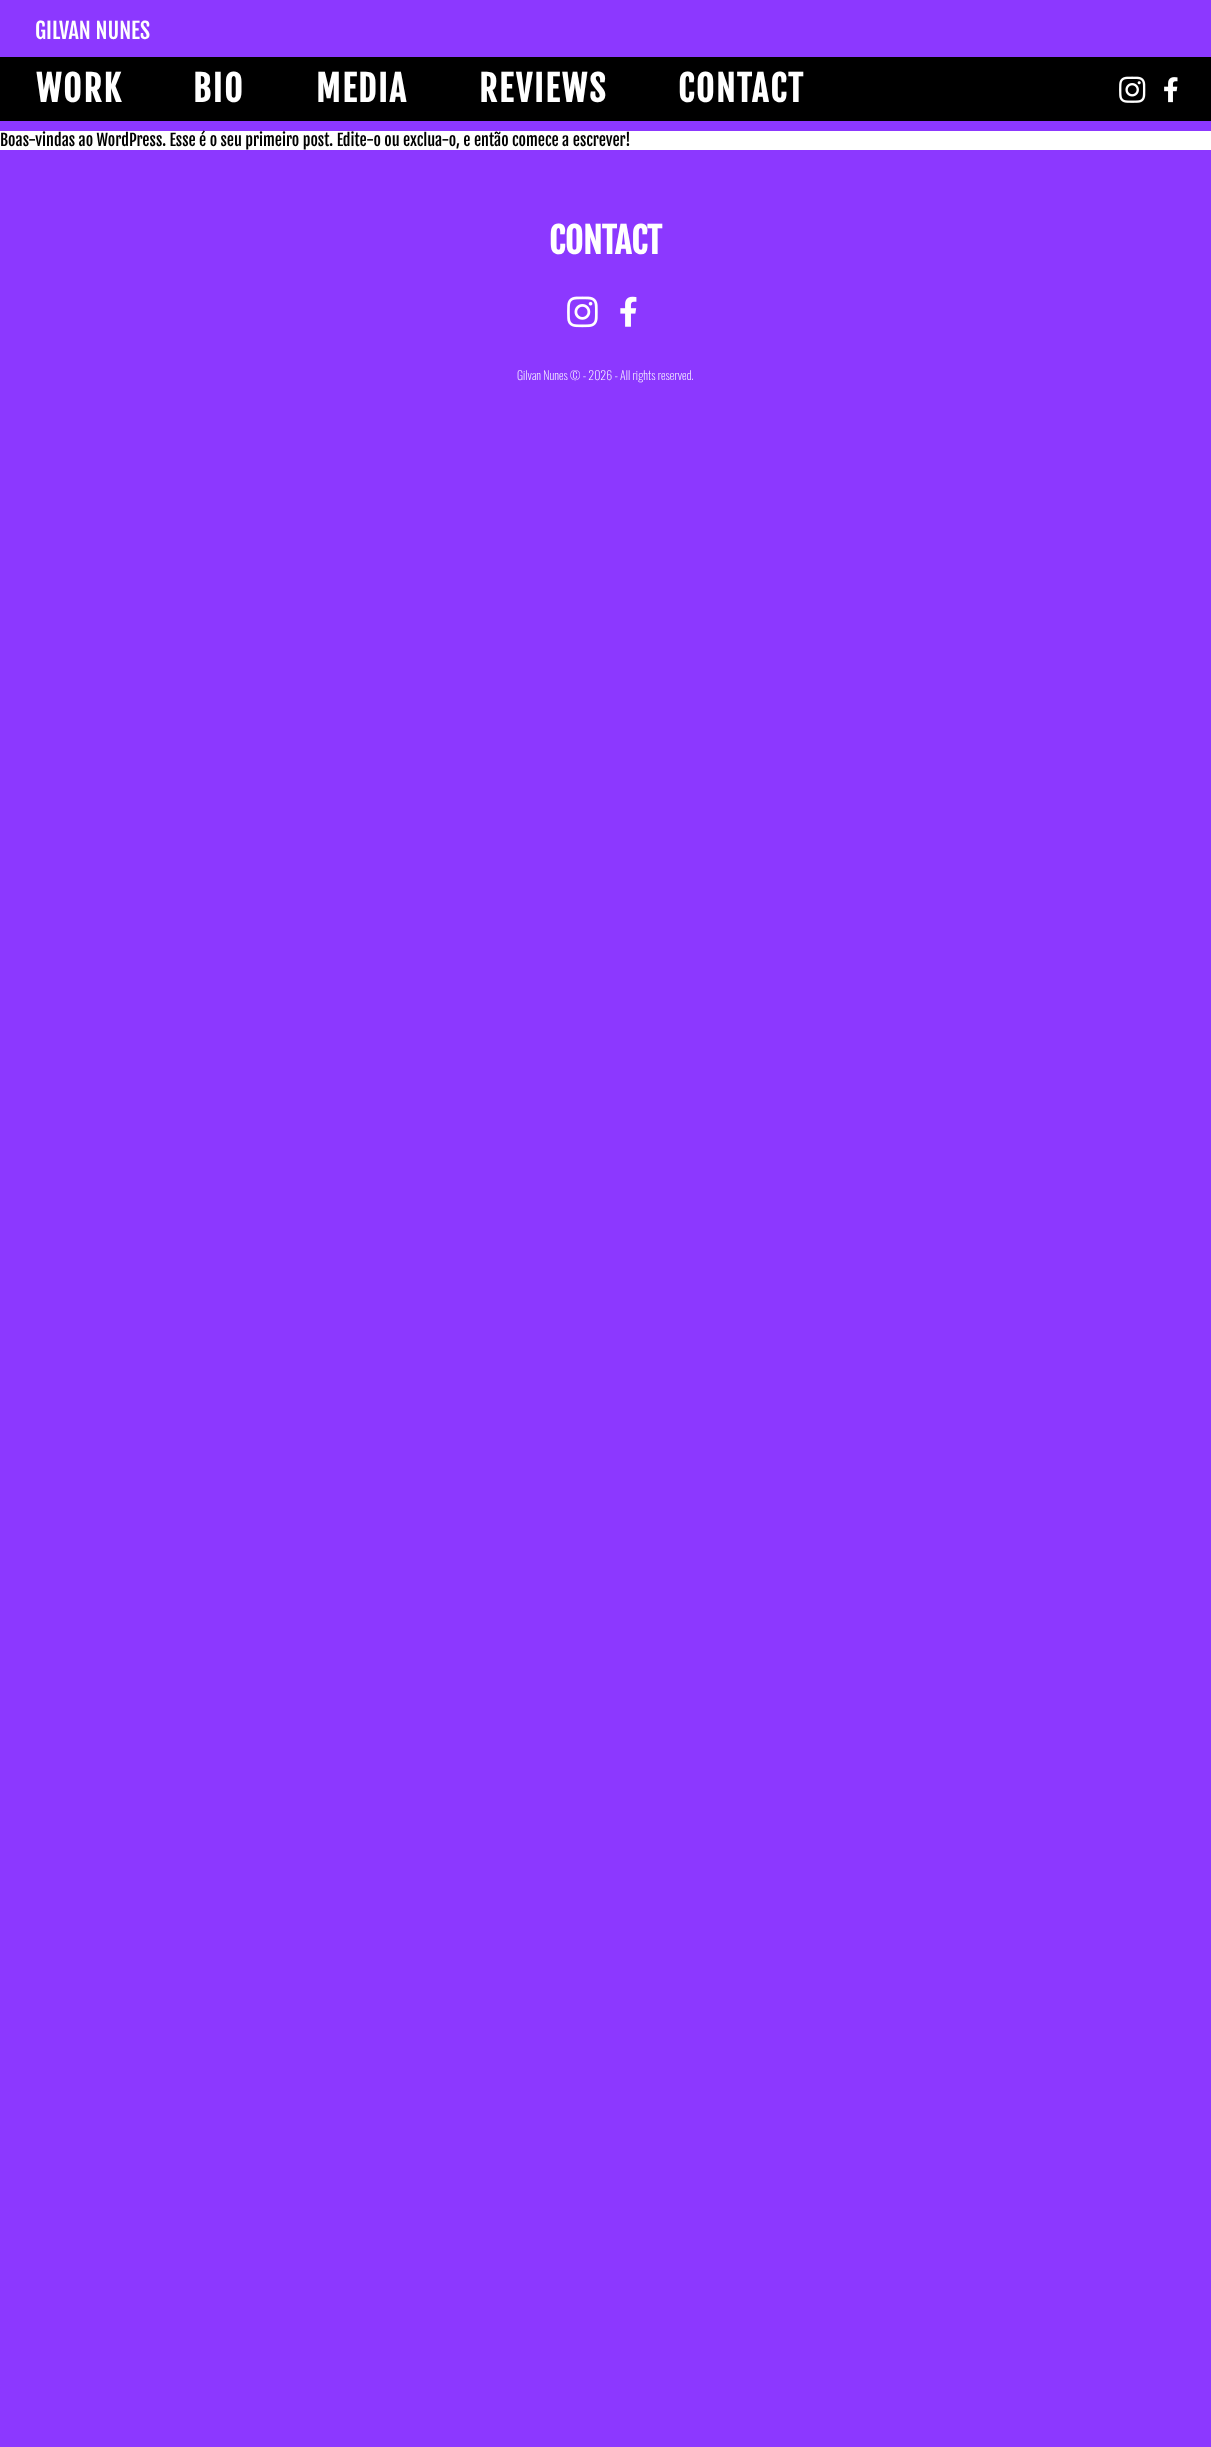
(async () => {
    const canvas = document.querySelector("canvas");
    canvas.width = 1211;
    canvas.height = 2447;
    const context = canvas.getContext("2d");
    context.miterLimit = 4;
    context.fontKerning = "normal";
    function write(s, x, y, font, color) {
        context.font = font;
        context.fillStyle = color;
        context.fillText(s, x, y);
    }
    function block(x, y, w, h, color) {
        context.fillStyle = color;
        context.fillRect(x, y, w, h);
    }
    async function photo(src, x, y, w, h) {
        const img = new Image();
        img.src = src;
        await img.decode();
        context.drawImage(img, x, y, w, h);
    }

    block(0, 0, 1211, 2447, "rgb(140, 56, 255)");
    write("GILVAN NUNES", 35, 39, "22px Fjalla One", "rgb(255, 255, 255)");
    block(0, 57, 1211, 64, "rgb(0, 0, 0)");
    context.letterSpacing = "2px";
    write("WORK", 36, 102, "bold 35px Fjalla One", "rgb(255, 255, 255)");
    write("BIO", 193, 102, "bold 35px Fjalla One", "rgb(255, 255, 255)");
    write("MEDIA", 316, 102, "bold 35px Fjalla One", "rgb(255, 255, 255)");
    write("REVIEWS", 479, 102, "bold 35px Fjalla One", "rgb(255, 255, 255)");
    write("CONTACT", 678, 102, "bold 35px Fjalla One", "rgb(255, 255, 255)");
    await photo("media/1.png", 1119, 76, 27, 27);
    await photo("media/2.png", 1164, 77, 14, 26);
    block(0, 131, 1211, 19, "rgb(255, 255, 255)");
    context.letterSpacing = "0px";
    write("Boas-vindas ao WordPress. Esse é o seu primeiro post. Edite-o ou exclua-o, e então comece a escrever!", 0, 146, "16px Fjalla One", "rgb(0, 0, 0)");
    write("CONTACT", 549, 254, "bold 35px Fjalla One", "rgb(255, 255, 255)");
    await photo("media/3.png", 567, 296, 31, 32);
    await photo("media/4.png", 620, 296, 17, 31);
    write("Gilvan Nunes © - 2026 - All rights reserved.", 517, 380, "200 12px Oswald", "rgb(255, 255, 255)");
})();
